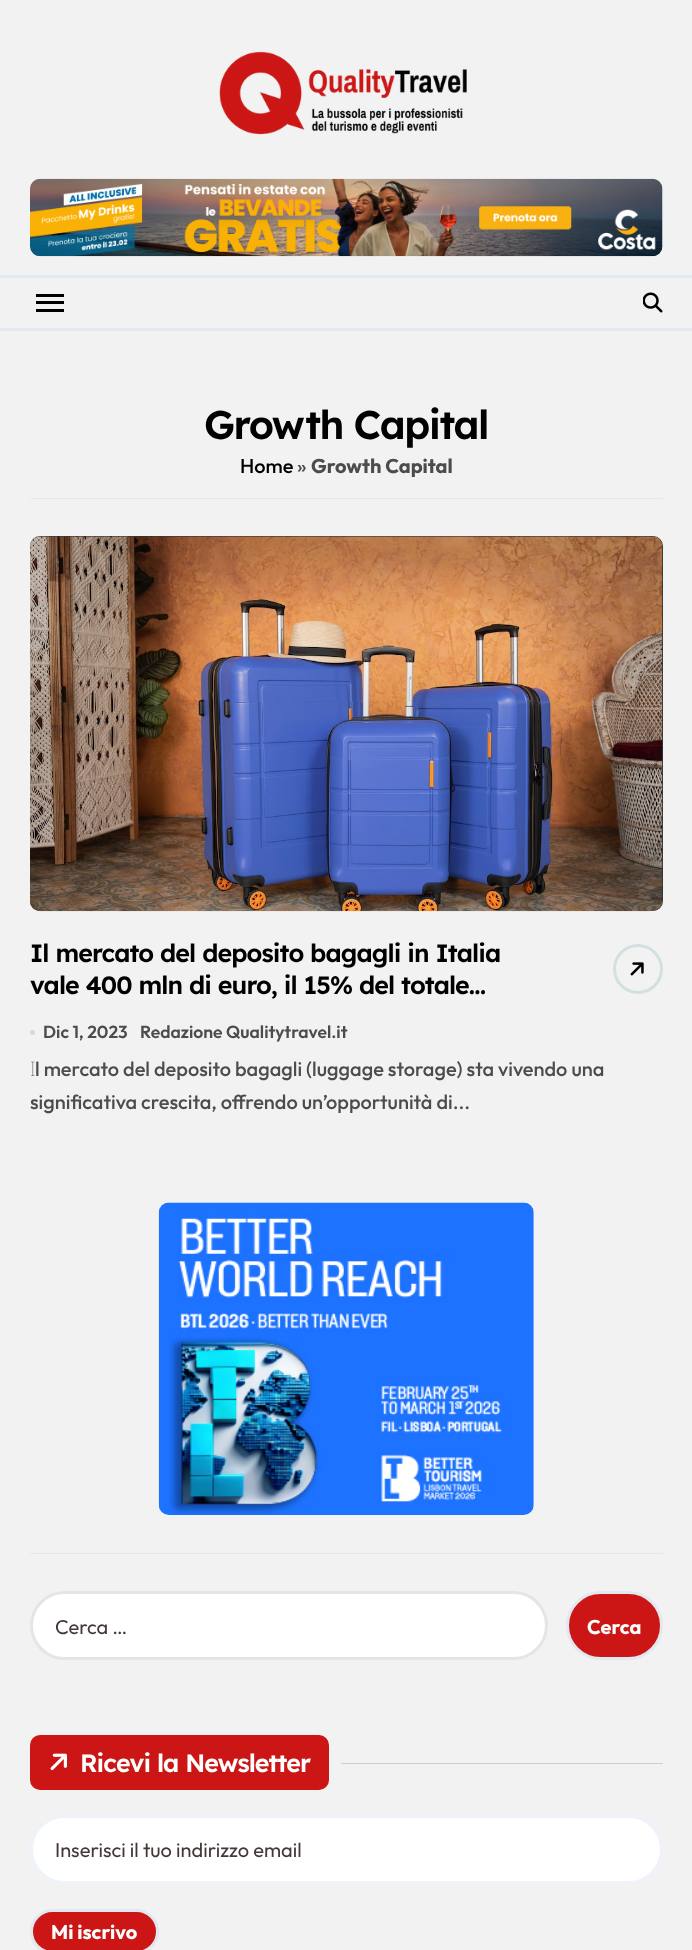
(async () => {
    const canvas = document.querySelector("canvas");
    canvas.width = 692;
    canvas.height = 1950;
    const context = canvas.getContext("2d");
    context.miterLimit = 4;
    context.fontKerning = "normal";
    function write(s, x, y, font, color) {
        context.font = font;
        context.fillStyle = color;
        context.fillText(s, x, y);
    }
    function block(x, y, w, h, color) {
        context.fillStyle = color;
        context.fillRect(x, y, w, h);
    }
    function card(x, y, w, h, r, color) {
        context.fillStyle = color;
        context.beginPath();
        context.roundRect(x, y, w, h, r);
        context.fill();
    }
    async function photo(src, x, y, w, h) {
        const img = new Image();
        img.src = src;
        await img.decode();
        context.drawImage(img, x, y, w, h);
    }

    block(0, 0, 692, 1950, "rgb(242, 242, 242)");
    await photo("media/1.png", 219, 51, 248, 84);
    await photo("media/2.png", 30, 178, 633, 79);
    block(0, 275, 692, 3, "rgb(226, 232, 240)");
    block(0, 328, 692, 3, "rgb(226, 232, 240)");
    block(36, 294, 28, 3, "rgb(0, 0, 0)");
    block(36, 301, 28, 3, "rgb(0, 0, 0)");
    block(36, 309, 28, 3, "rgb(0, 0, 0)");
    await photo("media/3.png", 643, 292, 20, 21);
    block(30, 498, 633, 1, "rgb(226, 232, 240)");
    context.letterSpacing = "-1.5px";
    write("Growth Capital", 204, 439, "600 40px Lexend Deca", "rgb(0, 0, 0)");
    context.letterSpacing = "0px";
    write("Home", 240, 473, "500 20px Outfit", "rgb(0, 0, 0)");
    write("»", 297, 473, "500 20px Outfit", "rgb(76, 76, 76)");
    write("Growth Capital", 311, 473, "bold 20px Outfit", "rgb(76, 76, 76)");
    card(30, 536, 633, 375, 10, "rgb(51, 51, 51)");
    await photo("media/4.png", 30, 536, 633, 376);
    context.letterSpacing = "-0.9px";
    write("Il mercato del deposito bagagli in Italia", 30, 962, "600 25px Lexend Deca", "rgb(0, 0, 0)");
    write("vale 400 mln di euro, il 15% del totale…", 30, 994, "600 25px Lexend Deca", "rgb(0, 0, 0)");
    context.beginPath();
    context.arc(638, 969, 23.5, 0, Math.PI * 2);
    context.strokeStyle = "rgb(211, 224, 226)";
    context.lineWidth = 3;
    context.stroke();
    await photo("media/5.png", 630, 962, 14, 14);
    context.fillStyle = "rgb(216, 216, 216)";
    context.beginPath();
    context.arc(32.5, 1032.5, 2.5, 0, Math.PI * 2);
    context.fill();
    context.letterSpacing = "0px";
    write("Dic 1, 2023", 43, 1038, "600 17.5px Outfit", "rgb(76, 76, 76)");
    write("Redazione Qualitytravel.it", 140, 1038, "600 17.5px Outfit", "rgb(76, 76, 76)");
    write("I", 30, 1076, "100 20px Noto Sans", "rgb(76, 76, 76)");
    write("l mercato del deposito bagagli (luggage storage) sta vivendo una", 35, 1076, "500 20px Outfit", "rgb(76, 76, 76)");
    write("significativa crescita, offrendo un’opportunità di...", 30, 1109, "500 20px Outfit", "rgb(76, 76, 76)");
    block(30, 1553, 633, 1, "rgb(226, 232, 240)");
    await photo("media/6.png", 158, 1202, 376, 313);
    context.fillStyle = "rgb(255, 255, 255)";
    context.beginPath();
    context.roundRect(31.5, 1592.5, 515, 66, 33);
    context.fill();
    context.strokeStyle = "rgb(229, 229, 229)";
    context.stroke();
    write("Cerca …", 55, 1634, "20px Outfit", "rgb(70, 56, 56)");
    context.fillStyle = "rgb(204, 22, 22)";
    context.beginPath();
    context.roundRect(567.5, 1592.5, 94, 66, 33);
    context.fill();
    context.strokeStyle = "rgb(226, 232, 240)";
    context.stroke();
    write("Cerca", 587, 1634, "bold 20px Outfit", "rgb(255, 255, 255)");
    card(30, 1735, 299, 55, 10, "rgb(204, 22, 22)");
    await photo("media/7.png", 50, 1753, 17, 18);
    context.letterSpacing = "-0.9px";
    write("Ricevi la Newsletter", 80, 1772, "600 25px Lexend Deca", "rgb(255, 255, 255)");
    block(341, 1763, 322, 1, "rgb(205, 205, 205)");
    context.fillStyle = "rgb(255, 255, 255)";
    context.beginPath();
    context.roundRect(31.5, 1816.5, 630, 66, 33);
    context.fill();
    context.strokeStyle = "rgb(238, 243, 251)";
    context.stroke();
    context.letterSpacing = "0px";
    write("Inserisci il tuo indirizzo email", 55, 1857, "20px Outfit", "rgb(70, 56, 56)");
    context.fillStyle = "rgb(204, 22, 22)";
    context.beginPath();
    context.roundRect(31.5, 1910.5, 126, 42, 21);
    context.fill();
    context.strokeStyle = "rgb(226, 232, 240)";
    context.stroke();
    write("Mi iscrivo", 51, 1939, "bold 20px Outfit", "rgb(255, 255, 255)");
})();
